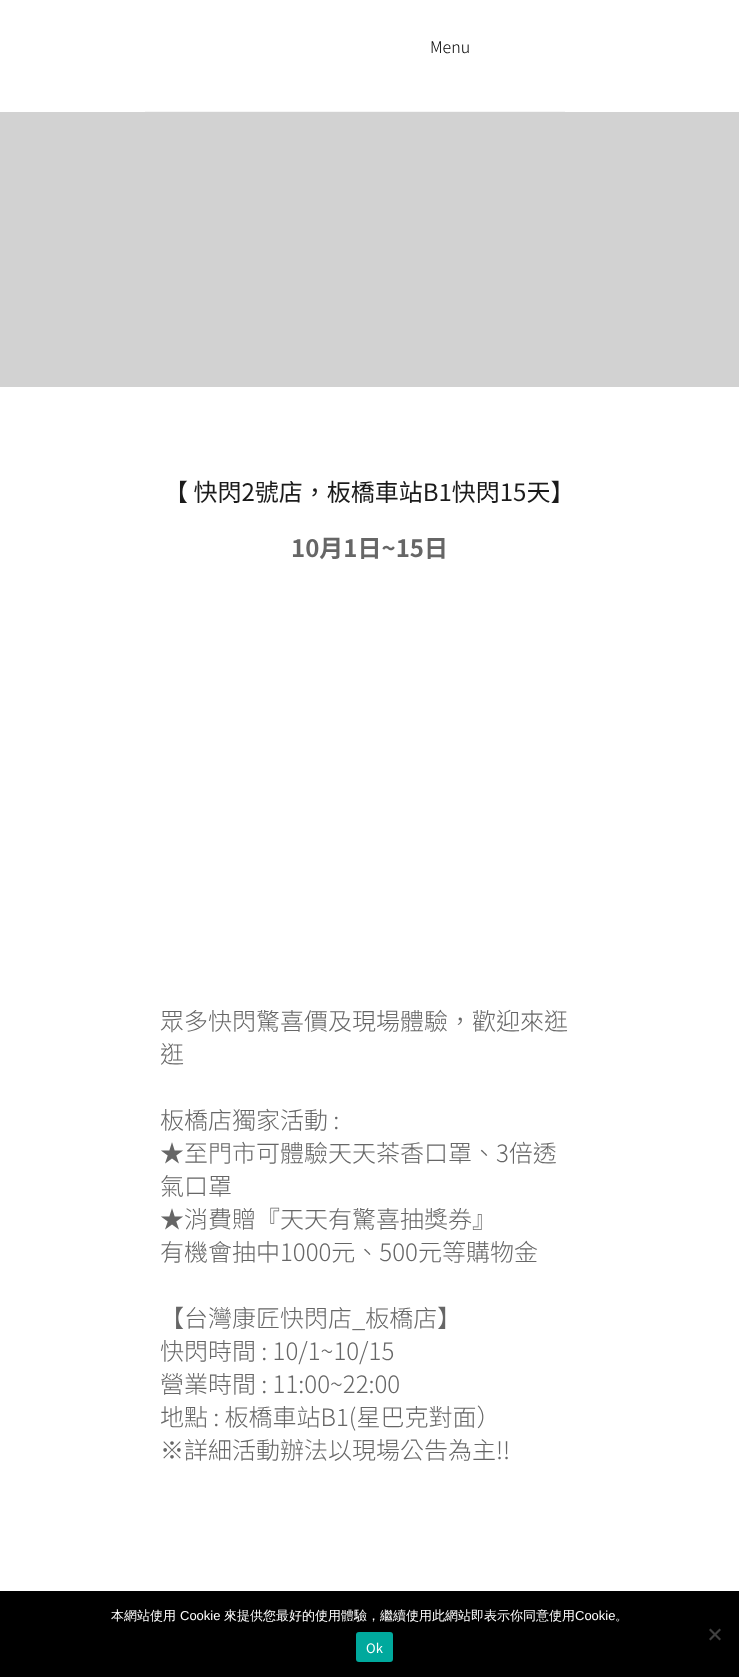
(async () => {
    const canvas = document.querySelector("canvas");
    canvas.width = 739;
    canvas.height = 1677;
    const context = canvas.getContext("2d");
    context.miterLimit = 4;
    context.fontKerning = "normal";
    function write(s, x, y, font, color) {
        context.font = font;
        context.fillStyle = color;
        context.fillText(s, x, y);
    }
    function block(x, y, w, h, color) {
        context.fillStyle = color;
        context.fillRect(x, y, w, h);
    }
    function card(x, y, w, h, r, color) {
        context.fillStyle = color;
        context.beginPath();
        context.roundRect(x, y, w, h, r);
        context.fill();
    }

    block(0, 0, 739, 1677, "rgb(255, 255, 255)");
    block(145, 111, 420, 1, "rgb(246, 246, 246)");
    write("Menu", 430, 53, "300 16px Noto Sans TC", "rgb(0, 0, 0)");
    block(0, 112, 739, 275, "rgb(210, 210, 210)");
    write("【 快閃2號店，板橋車站B1快閃15天】", 164, 501, "24px Noto Sans TC", "rgb(27, 27, 27)");
    write("10月1日~15日", 291, 557, "bold 24px Noto Sans TC", "rgb(102, 102, 102)");
    write("眾多快閃驚喜價及現場體驗，歡迎來逛", 160, 1030, "300 24px Noto Sans TC", "rgb(102, 102, 102)");
    write("逛", 160, 1063, "300 24px Noto Sans TC", "rgb(102, 102, 102)");
    write("板橋店獨家活動 :", 160, 1129, "300 24px Noto Sans TC", "rgb(102, 102, 102)");
    write("★至門市可體驗天天茶香口罩、3倍透", 160, 1162, "300 24px Noto Sans TC", "rgb(102, 102, 102)");
    write("氣口罩", 160, 1195, "300 24px Noto Sans TC", "rgb(102, 102, 102)");
    write("★消費贈『天天有驚喜抽獎券』", 160, 1228, "300 24px Noto Sans TC", "rgb(102, 102, 102)");
    write("有機會抽中1000元、500元等購物金", 160, 1261, "300 24px Noto Sans TC", "rgb(102, 102, 102)");
    write("【台灣康匠快閃店_板橋店】", 160, 1327, "300 24px Noto Sans TC", "rgb(102, 102, 102)");
    write("快閃時間 : 10/1~10/15", 160, 1360, "300 24px Noto Sans TC", "rgb(102, 102, 102)");
    write("營業時間 : 11:00~22:00", 160, 1393, "300 24px Noto Sans TC", "rgb(102, 102, 102)");
    write("地點 : 板橋車站B1(星巴克對面）", 160, 1426, "300 24px Noto Sans TC", "rgb(102, 102, 102)");
    write("※詳細活動辦法以現場公告為主!!", 160, 1459, "300 24px Noto Sans TC", "rgb(102, 102, 102)");
    block(0, 1591, 739, 86, "rgb(0, 0, 0)");
    write("本網站使用", 111, 1620, "500 13px WenQuanYi Zen Hei", "rgb(255, 255, 255)");
    write("Cookie", 180, 1620, "13px Liberation Sans", "rgb(255, 255, 255)");
    write("來提供您最好的使用體驗，繼續使用此網站即表示你同意使用", 224, 1620, "500 13px WenQuanYi Zen Hei", "rgb(255, 255, 255)");
    write("Cookie", 575, 1620, "13px Liberation Sans", "rgb(255, 255, 255)");
    write("。", 615, 1620, "500 13px WenQuanYi Zen Hei", "rgb(255, 255, 255)");
    context.fillStyle = "rgb(64, 64, 64)";
    context.beginPath();
    context.moveTo(719.5, 1628.5);
    context.lineTo(721, 1630);
    context.lineTo(710.5, 1640.5);
    context.lineTo(709, 1639);
    context.closePath();
    context.fill();
    context.beginPath();
    context.moveTo(709, 1630);
    context.lineTo(710.5, 1628.5);
    context.lineTo(721, 1639);
    context.lineTo(719.5, 1640.5);
    context.closePath();
    context.fill();
    card(356, 1632, 37, 30, 3, "rgb(0, 169, 157)");
    write("Ok", 366, 1653, "13px Noto Sans TC", "rgb(255, 255, 255)");
})();
